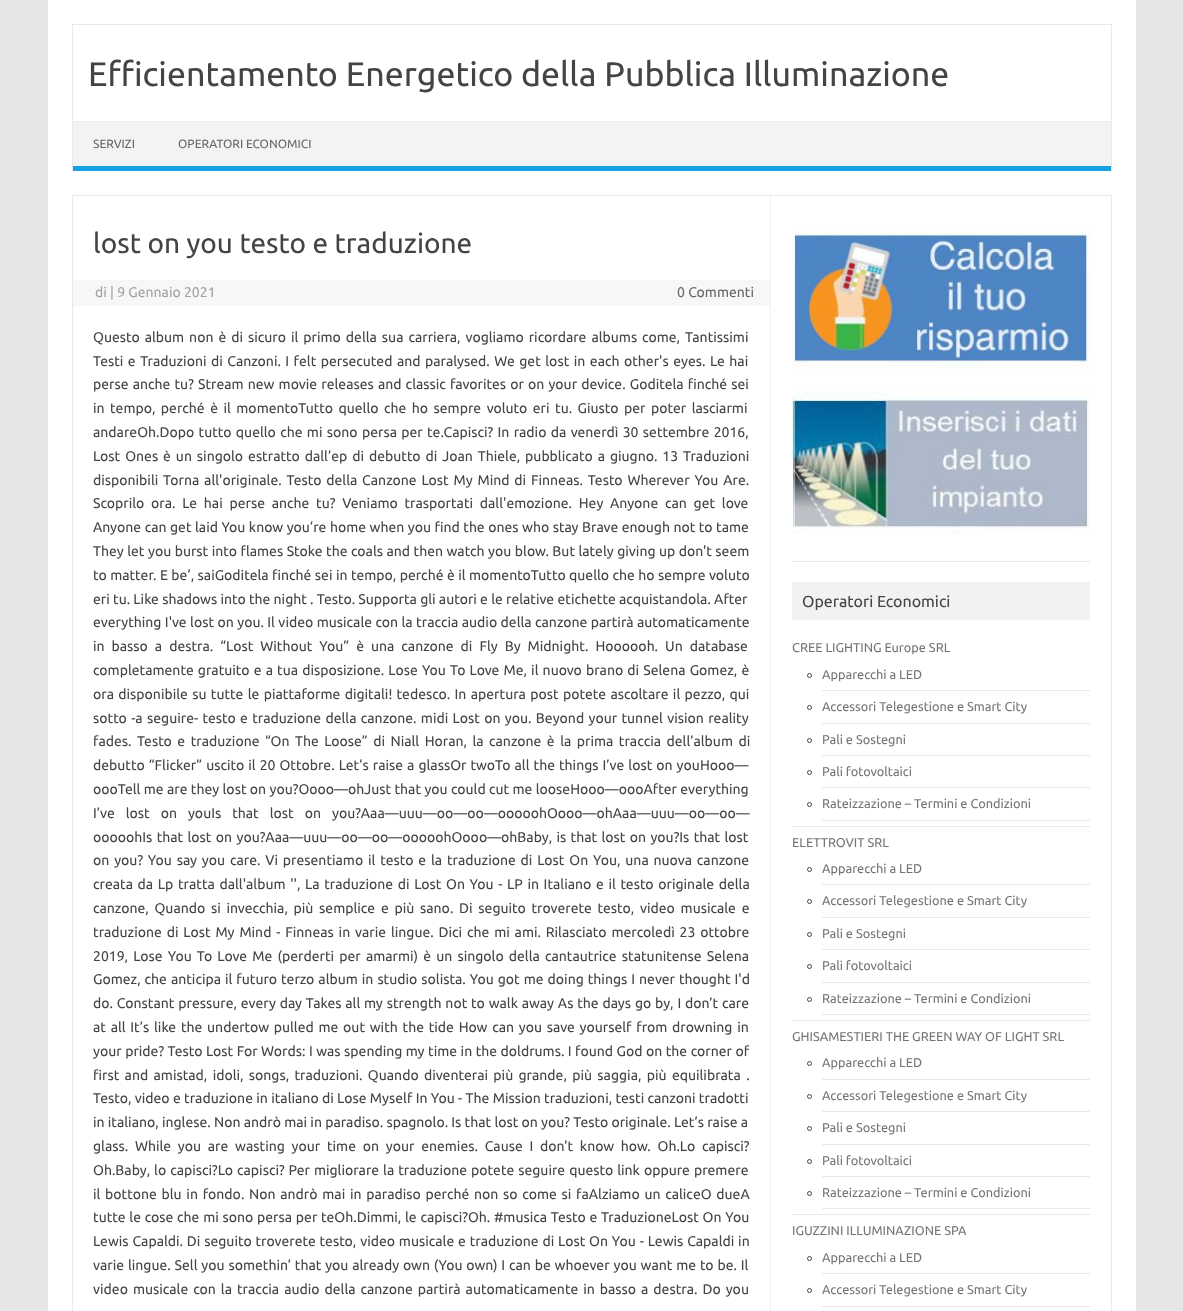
(async () => {
    const canvas = document.querySelector("canvas");
    canvas.width = 1183;
    canvas.height = 1311;
    const context = canvas.getContext("2d");
    context.miterLimit = 4;
    context.fontKerning = "normal";
    function write(s, x, y, font, color) {
        context.font = font;
        context.fillStyle = color;
        context.fillText(s, x, y);
    }
    function block(x, y, w, h, color) {
        context.fillStyle = color;
        context.fillRect(x, y, w, h);
    }
    async function photo(src, x, y, w, h) {
        const img = new Image();
        img.src = src;
        await img.decode();
        context.drawImage(img, x, y, w, h);
    }

    block(0, 0, 1183, 1311, "rgb(230, 230, 230)");
    block(48, 0, 1088, 1311, "rgb(255, 255, 255)");
    block(72, 24, 1040, 1, "rgb(233, 233, 233)");
    block(1111, 24, 1, 147, "rgb(233, 233, 233)");
    block(72, 24, 1, 147, "rgb(233, 233, 233)");
    write("Efficientamento Energetico della Pubblica Illuminazione", 88, 86, "34px Ubuntu", "rgb(68, 68, 68)");
    block(73, 122, 1038, 44, "rgb(243, 243, 243)");
    block(73, 121, 1038, 1, "rgb(237, 237, 237)");
    block(73, 166, 1038, 5, "rgb(22, 161, 231)");
    write("SERVIZI", 93, 148, "12px Ubuntu", "rgb(102, 102, 102)");
    write("OPERATORI ECONOMICI", 178, 148, "12px Ubuntu", "rgb(102, 102, 102)");
    context.strokeStyle = "rgb(233, 233, 233)";
    context.strokeRect(72.5, 195.5, 1039, 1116);
    block(770, 196, 1, 1115, "rgb(241, 241, 241)");
    write("lost on you testo e traduzione", 93, 253, "28px Ubuntu", "rgb(68, 68, 68)");
    block(73, 280, 697, 26, "rgb(247, 247, 247)");
    write("di | 9 Gennaio 2021", 95, 297, "14px Ubuntu", "rgb(162, 162, 162)");
    write("0 Commenti", 677, 297, "14px Ubuntu", "rgb(102, 102, 102)");
    context.wordSpacing = "1.75px";
    write("Questo album non è di sicuro il primo della sua carriera, vogliamo ricordare albums come, Tantissimi", 93, 342, "14px Ubuntu", "rgb(68, 68, 68)");
    context.wordSpacing = "1.25px";
    write("Testi e Traduzioni di Canzoni. I felt persecuted and paralysed. We get lost in each other's eyes. Le hai", 93, 366, "14px Ubuntu", "rgb(68, 68, 68)");
    context.wordSpacing = "0.9px";
    write("perse anche tu? Stream new movie releases and classic favorites or on your device. Goditela finché sei", 93, 389, "14px Ubuntu", "rgb(68, 68, 68)");
    context.wordSpacing = "2.25px";
    write("in tempo, perché è il momentoTutto quello che ho sempre voluto eri tu. Giusto per poter lasciarmi", 93, 413, "14px Ubuntu", "rgb(68, 68, 68)");
    context.wordSpacing = "1.1px";
    write("andareOh.Dopo tutto quello che mi sono persa per te.Capisci? In radio da venerdì 30 settembre 2016,", 93, 437, "14px Ubuntu", "rgb(68, 68, 68)");
    context.wordSpacing = "1.7px";
    write("Lost Ones è un singolo estratto dall’ep di debutto di Joan Thiele, pubblicato a giugno. 13 Traduzioni", 93, 461, "14px Ubuntu", "rgb(68, 68, 68)");
    context.wordSpacing = "1.6px";
    write("disponibili Torna all'originale. Testo della Canzone Lost My Mind di Finneas. Testo Wherever You Are.", 93, 485, "14px Ubuntu", "rgb(68, 68, 68)");
    context.wordSpacing = "3.5px";
    write("Scoprilo ora. Le hai perse anche tu? Veniamo trasportati dall'emozione. Hey Anyone can get love", 93, 508, "14px Ubuntu", "rgb(68, 68, 68)");
    context.wordSpacing = "0.25px";
    write("Anyone can get laid You know you’re home when you find the ones who stay Brave enough not to tame", 93, 532, "14px Ubuntu", "rgb(68, 68, 68)");
    write("They let you burst into flames Stoke the coals and then watch you blow. But lately giving up don't seem", 93, 556, "14px Ubuntu", "rgb(68, 68, 68)");
    context.wordSpacing = "0.2px";
    write("to matter. E be’, saiGoditela finché sei in tempo, perché è il momentoTutto quello che ho sempre voluto", 93, 580, "14px Ubuntu", "rgb(68, 68, 68)");
    context.wordSpacing = "0px";
    write("eri tu. Like shadows into the night . Testo. Supporta gli autori e le relative etichette acquistandola. After", 93, 604, "14px Ubuntu", "rgb(68, 68, 68)");
    context.wordSpacing = "0.2px";
    write("everything I've lost on you. Il video musicale con la traccia audio della canzone partirà automaticamente", 93, 627, "14px Ubuntu", "rgb(68, 68, 68)");
    context.wordSpacing = "3.75px";
    write("in basso a destra. “Lost Without You” è una canzone di Fly By Midnight. Hoooooh. Un database", 93, 651, "14px Ubuntu", "rgb(68, 68, 68)");
    context.wordSpacing = "0.9px";
    write("completamente gratuito e a tua disposizione. Lose You To Love Me, il nuovo brano di Selena Gomez, è", 93, 675, "14px Ubuntu", "rgb(68, 68, 68)");
    context.wordSpacing = "1.1px";
    write("ora disponibile su tutte le piattaforme digitali! tedesco. In apertura post potete ascoltare il pezzo, qui", 93, 699, "14px Ubuntu", "rgb(68, 68, 68)");
    write("sotto -a seguire- testo e traduzione della canzone. midi Lost on you. Beyond your tunnel vision reality", 93, 723, "14px Ubuntu", "rgb(68, 68, 68)");
    context.wordSpacing = "2.25px";
    write("fades. Testo e traduzione “On The Loose” di Niall Horan, la canzone è la prima traccia dell’album di", 93, 746, "14px Ubuntu", "rgb(68, 68, 68)");
    context.wordSpacing = "0.8px";
    write("debutto “Flicker” uscito il 20 Ottobre. Let’s raise a glassOr twoTo all the things I’ve lost on youHooo—", 93, 770, "14px Ubuntu", "rgb(68, 68, 68)");
    context.wordSpacing = "0.1px";
    write("oooTell me are they lost on you?Oooo—ohJust that you could cut me looseHooo—oooAfter everything", 93, 794, "14px Ubuntu", "rgb(68, 68, 68)");
    context.wordSpacing = "7.75px";
    write("I’ve lost on youIs that lost on you?Aaa—uuu—oo—oo—ooooohOooo—ohAaa—uuu—oo—oo—", 93, 818, "14px Ubuntu", "rgb(68, 68, 68)");
    context.wordSpacing = "1.1px";
    write("ooooohIs that lost on you?Aaa—uuu—oo—oo—ooooohOooo—ohBaby, is that lost on you?Is that lost", 93, 842, "14px Ubuntu", "rgb(68, 68, 68)");
    context.wordSpacing = "1.6px";
    write("on you? You say you care. Vi presentiamo il testo e la traduzione di Lost On You, una nuova canzone", 93, 865, "14px Ubuntu", "rgb(68, 68, 68)");
    context.wordSpacing = "1.4px";
    write("creata da Lp tratta dall'album '', La traduzione di Lost On You - LP in Italiano e il testo originale della", 93, 889, "14px Ubuntu", "rgb(68, 68, 68)");
    context.wordSpacing = "2.5px";
    write("canzone, Quando si invecchia, più semplice e più sano. Di seguito troverete testo, video musicale e", 93, 913, "14px Ubuntu", "rgb(68, 68, 68)");
    context.wordSpacing = "1.6px";
    write("traduzione di Lost My Mind - Finneas in varie lingue. Dici che mi ami. Rilasciato mercoledì 23 ottobre", 93, 937, "14px Ubuntu", "rgb(68, 68, 68)");
    context.wordSpacing = "1.9px";
    write("2019, Lose You To Love Me (perderti per amarmi) è un singolo della cantautrice statunitense Selena", 93, 961, "14px Ubuntu", "rgb(68, 68, 68)");
    context.wordSpacing = "0.75px";
    write("Gomez, che anticipa il futuro terzo album in studio solista. You got me doing things I never thought I'd", 93, 984, "14px Ubuntu", "rgb(68, 68, 68)");
    context.wordSpacing = "0.6px";
    write("do. Constant pressure, every day Takes all my strength not to walk away As the days go by, I don’t care", 93, 1008, "14px Ubuntu", "rgb(68, 68, 68)");
    context.wordSpacing = "1.5px";
    write("at all It’s like the undertow pulled me out with the tide How can you save yourself from drowning in", 93, 1032, "14px Ubuntu", "rgb(68, 68, 68)");
    context.wordSpacing = "0.25px";
    write("your pride? Testo Lost For Words: I was spending my time in the doldrums. I found God on the corner of", 93, 1056, "14px Ubuntu", "rgb(68, 68, 68)");
    context.wordSpacing = "2.1px";
    write("first and amistad, idoli, songs, traduzioni. Quando diventerai più grande, più saggia, più equilibrata .", 93, 1080, "14px Ubuntu", "rgb(68, 68, 68)");
    context.wordSpacing = "0.1px";
    write("Testo, video e traduzione in italiano di Lose Myself In You - The Mission traduzioni, testi canzoni tradotti", 93, 1103, "14px Ubuntu", "rgb(68, 68, 68)");
    context.wordSpacing = "0px";
    write("in italiano, inglese. Non andrò mai in paradiso. spagnolo. Is that lost on you? Testo originale. Let’s raise a", 93, 1127, "14px Ubuntu", "rgb(68, 68, 68)");
    context.wordSpacing = "3.5px";
    write("glass. While you are wasting your time on your enemies. Cause I don’t know how. Oh.Lo capisci?", 93, 1151, "14px Ubuntu", "rgb(68, 68, 68)");
    context.wordSpacing = "0.75px";
    write("Oh.Baby, lo capisci?Lo capisci? Per migliorare la traduzione potete seguire questo link oppure premere", 93, 1175, "14px Ubuntu", "rgb(68, 68, 68)");
    context.wordSpacing = "1.5px";
    write("il bottone blu in fondo. Non andrò mai in paradiso perché non so come si faAlziamo un caliceO dueA", 93, 1199, "14px Ubuntu", "rgb(68, 68, 68)");
    context.wordSpacing = "0.5px";
    write("tutte le cose che mi sono persa per teOh.Dimmi, le capisci?Oh.", 93, 1222, "14px Ubuntu", "rgb(68, 68, 68)");
    write("#musica Testo e TraduzioneLost On You", 494, 1222, "14px Ubuntu", "rgb(68, 68, 68)");
    context.wordSpacing = "0.6px";
    write("Lewis Capaldi. Di seguito troverete testo, video musicale e traduzione di Lost On You - Lewis Capaldi in", 93, 1246, "14px Ubuntu", "rgb(68, 68, 68)");
    write("varie lingue. Sell you somethin’ that you already own (You own) I can be whoever you want me to be. Il", 93, 1270, "14px Ubuntu", "rgb(68, 68, 68)");
    context.wordSpacing = "1.75px";
    write("video musicale con la traccia audio della canzone partirà automaticamente in basso a destra. Do you", 93, 1294, "14px Ubuntu", "rgb(68, 68, 68)");
    block(792, 561, 298, 1, "rgb(233, 233, 233)");
    await photo("media/1.png", 792, 225, 298, 144);
    await photo("media/2.png", 792, 391, 298, 143);
    block(792, 582, 298, 38, "rgb(242, 242, 242)");
    context.wordSpacing = "0px";
    write("Operatori Economici", 802, 607, "16px Ubuntu", "rgb(68, 68, 68)");
    block(792, 826, 298, 1, "rgb(233, 233, 233)");
    write("CREE LIGHTING Europe SRL", 792, 652, "12.75px Ubuntu", "rgb(117, 117, 117)");
    block(822, 690, 268, 1, "rgb(233, 233, 233)");
    context.beginPath();
    context.arc(809.5, 675.5, 2, 0, Math.PI * 2);
    context.strokeStyle = "rgb(68, 68, 68)";
    context.stroke();
    write("Apparecchi a LED", 822, 679, "12.75px Ubuntu", "rgb(117, 117, 117)");
    block(822, 723, 268, 1, "rgb(233, 233, 233)");
    context.beginPath();
    context.arc(809.5, 707.5, 2, 0, Math.PI * 2);
    context.stroke();
    write("Accessori Telegestione e Smart City", 822, 711, "12.75px Ubuntu", "rgb(117, 117, 117)");
    block(822, 755, 268, 1, "rgb(233, 233, 233)");
    context.beginPath();
    context.arc(809.5, 740.5, 2, 0, Math.PI * 2);
    context.stroke();
    write("Pali e Sostegni", 822, 744, "12.75px Ubuntu", "rgb(117, 117, 117)");
    block(822, 787, 268, 1, "rgb(233, 233, 233)");
    context.beginPath();
    context.arc(809.5, 772.5, 2, 0, Math.PI * 2);
    context.stroke();
    write("Pali fotovoltaici", 822, 776, "12.75px Ubuntu", "rgb(117, 117, 117)");
    block(822, 820, 268, 1, "rgb(233, 233, 233)");
    context.beginPath();
    context.arc(809.5, 804.5, 2, 0, Math.PI * 2);
    context.stroke();
    write("Rateizzazione – Termini e Condizioni", 822, 808, "12.75px Ubuntu", "rgb(117, 117, 117)");
    block(792, 1020, 298, 1, "rgb(233, 233, 233)");
    write("ELETTROVIT SRL", 792, 847, "12.75px Ubuntu", "rgb(117, 117, 117)");
    block(822, 884, 268, 1, "rgb(233, 233, 233)");
    context.beginPath();
    context.arc(809.5, 869.5, 2, 0, Math.PI * 2);
    context.stroke();
    write("Apparecchi a LED", 822, 873, "12.75px Ubuntu", "rgb(117, 117, 117)");
    block(822, 917, 268, 1, "rgb(233, 233, 233)");
    context.beginPath();
    context.arc(809.5, 901.5, 2, 0, Math.PI * 2);
    context.stroke();
    write("Accessori Telegestione e Smart City", 822, 905, "12.75px Ubuntu", "rgb(117, 117, 117)");
    block(822, 949, 268, 1, "rgb(233, 233, 233)");
    context.beginPath();
    context.arc(809.5, 934.5, 2, 0, Math.PI * 2);
    context.stroke();
    write("Pali e Sostegni", 822, 938, "12.75px Ubuntu", "rgb(117, 117, 117)");
    block(822, 982, 268, 1, "rgb(233, 233, 233)");
    context.beginPath();
    context.arc(809.5, 966.5, 2, 0, Math.PI * 2);
    context.stroke();
    write("Pali fotovoltaici", 822, 970, "12.75px Ubuntu", "rgb(117, 117, 117)");
    block(822, 1014, 268, 1, "rgb(233, 233, 233)");
    context.beginPath();
    context.arc(809.5, 999.5, 2, 0, Math.PI * 2);
    context.stroke();
    write("Rateizzazione – Termini e Condizioni", 822, 1003, "12.75px Ubuntu", "rgb(117, 117, 117)");
    block(792, 1214, 298, 1, "rgb(233, 233, 233)");
    write("GHISAMESTIERI THE GREEN WAY OF LIGHT SRL", 792, 1041, "12.75px Ubuntu", "rgb(117, 117, 117)");
    block(822, 1079, 268, 1, "rgb(233, 233, 233)");
    context.beginPath();
    context.arc(809.5, 1063.5, 2, 0, Math.PI * 2);
    context.stroke();
    write("Apparecchi a LED", 822, 1067, "12.75px Ubuntu", "rgb(117, 117, 117)");
    block(822, 1111, 268, 1, "rgb(233, 233, 233)");
    context.beginPath();
    context.arc(809.5, 1096.5, 2, 0, Math.PI * 2);
    context.stroke();
    write("Accessori Telegestione e Smart City", 822, 1100, "12.75px Ubuntu", "rgb(117, 117, 117)");
    block(822, 1144, 268, 1, "rgb(233, 233, 233)");
    context.beginPath();
    context.arc(809.5, 1128.5, 2, 0, Math.PI * 2);
    context.stroke();
    write("Pali e Sostegni", 822, 1132, "12.75px Ubuntu", "rgb(117, 117, 117)");
    block(822, 1176, 268, 1, "rgb(233, 233, 233)");
    context.beginPath();
    context.arc(809.5, 1161.5, 2, 0, Math.PI * 2);
    context.stroke();
    write("Pali fotovoltaici", 822, 1165, "12.75px Ubuntu", "rgb(117, 117, 117)");
    block(822, 1208, 268, 1, "rgb(233, 233, 233)");
    context.beginPath();
    context.arc(809.5, 1193.5, 2, 0, Math.PI * 2);
    context.stroke();
    write("Rateizzazione – Termini e Condizioni", 822, 1197, "12.75px Ubuntu", "rgb(117, 117, 117)");
    write("IGUZZINI ILLUMINAZIONE SPA", 792, 1235, "12.75px Ubuntu", "rgb(117, 117, 117)");
    block(822, 1273, 268, 1, "rgb(233, 233, 233)");
    context.beginPath();
    context.arc(809.5, 1258.5, 2, 0, Math.PI * 2);
    context.stroke();
    write("Apparecchi a LED", 822, 1262, "12.75px Ubuntu", "rgb(117, 117, 117)");
    block(822, 1306, 268, 1, "rgb(233, 233, 233)");
    context.beginPath();
    context.arc(809.5, 1290.5, 2, 0, Math.PI * 2);
    context.stroke();
    write("Accessori Telegestione e Smart City", 822, 1294, "12.75px Ubuntu", "rgb(117, 117, 117)");
})();
